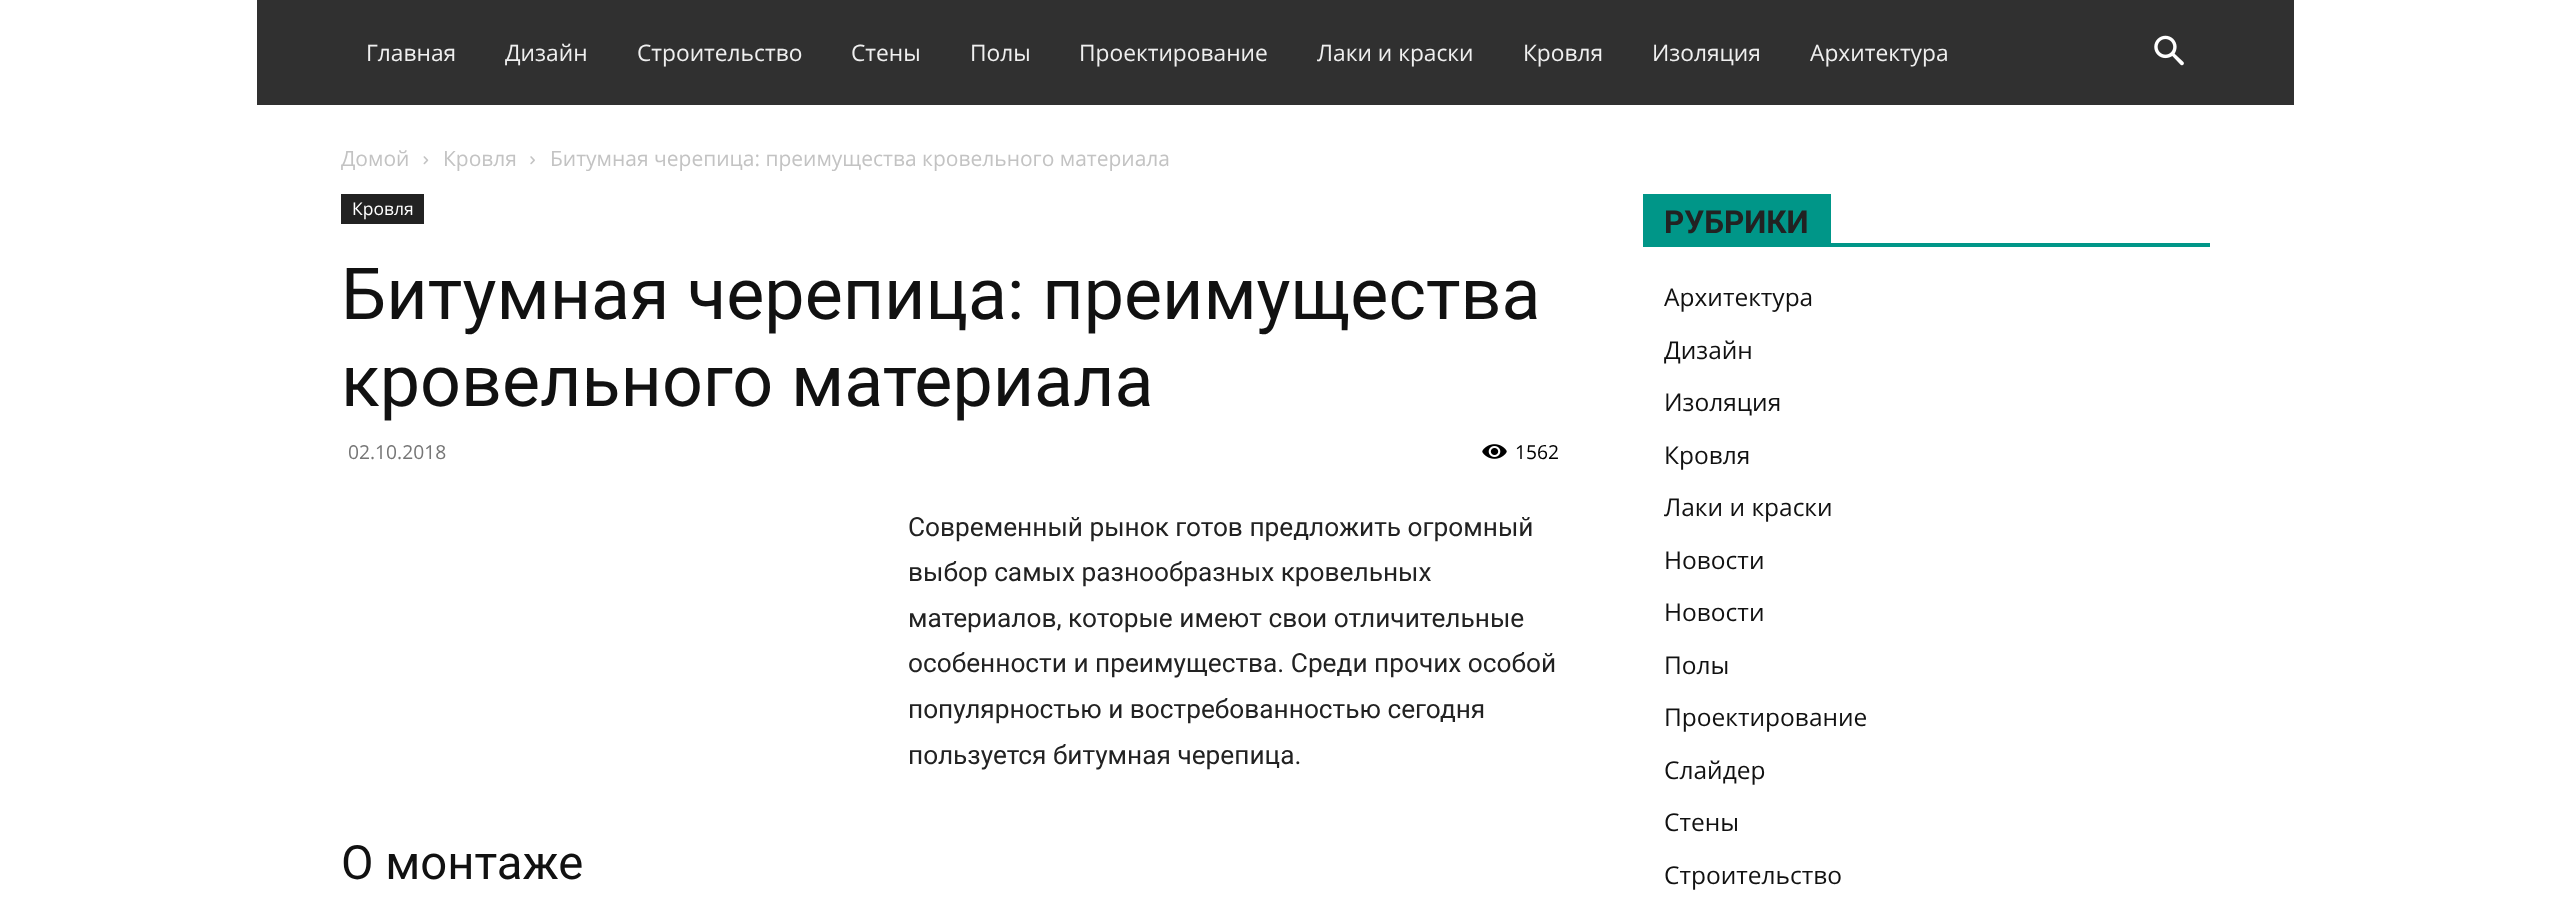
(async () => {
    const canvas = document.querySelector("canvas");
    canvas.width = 2551;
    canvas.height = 908;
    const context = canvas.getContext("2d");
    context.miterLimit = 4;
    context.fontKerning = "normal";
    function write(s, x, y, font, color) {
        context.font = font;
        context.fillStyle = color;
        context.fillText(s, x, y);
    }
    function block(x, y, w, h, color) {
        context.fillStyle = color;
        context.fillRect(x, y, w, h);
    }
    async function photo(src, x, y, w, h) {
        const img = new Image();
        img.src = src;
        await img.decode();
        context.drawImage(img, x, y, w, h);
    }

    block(0, 0, 2551, 908, "rgb(255, 255, 255)");
    block(257, 0, 2037, 105, "rgb(48, 48, 48)");
    write("Главная", 366, 61, "22.75px Open Sans", "rgb(239, 239, 239)");
    write("Дизайн", 505, 61, "22.75px Open Sans", "rgb(239, 239, 239)");
    write("Строительство", 637, 61, "22.75px Open Sans", "rgb(239, 239, 239)");
    write("Стены", 851, 61, "22.75px Open Sans", "rgb(239, 239, 239)");
    write("Полы", 970, 61, "22.75px Open Sans", "rgb(239, 239, 239)");
    write("Проектирование", 1079, 61, "22.75px Open Sans", "rgb(239, 239, 239)");
    write("Лаки и краски", 1317, 61, "22.75px Open Sans", "rgb(239, 239, 239)");
    write("Кровля", 1523, 61, "22.75px Open Sans", "rgb(239, 239, 239)");
    write("Изоляция", 1652, 61, "22.75px Open Sans", "rgb(239, 239, 239)");
    write("Архитектура", 1810, 61, "22.75px Open Sans", "rgb(239, 239, 239)");
    await photo("media/1.png", 2154, 35, 30, 31);
    write("Домой", 341, 166, "21px Open Sans", "rgb(195, 195, 195)");
    await photo("media/2.png", 423, 156, 6, 9);
    write("Кровля", 443, 166, "21px Open Sans", "rgb(195, 195, 195)");
    await photo("media/3.png", 530, 156, 5, 9);
    write("Битумная черепица: преимущества кровельного материала", 550, 166, "21px Open Sans", "rgb(195, 195, 195)");
    block(341, 194, 83, 30, "rgb(34, 34, 34)");
    write("Кровля", 352, 215, "17.5px Open Sans", "rgb(255, 255, 255)");
    write("Битумная черепица: преимущества", 341, 319, "71.75px Roboto", "rgb(17, 17, 17)");
    write("кровельного материала", 341, 406, "71.75px Roboto", "rgb(17, 17, 17)");
    write("02.10.2018", 348, 459, "19.25px Open Sans", "rgb(118, 118, 118)");
    await photo("media/4.png", 1482, 444, 25, 15);
    write("1562", 1515, 459, "19.25px Open Sans", "rgb(0, 0, 0)");
    write("Современный рынок готов предложить огромный", 908, 536, "26.25px Roboto", "rgb(34, 34, 34)");
    write("выбор самых разнообразных кровельных", 908, 581, "26.25px Roboto", "rgb(34, 34, 34)");
    write("материалов, которые имеют свои отличительные", 908, 627, "26.25px Roboto", "rgb(34, 34, 34)");
    write("особенности и преимущества. Среди прочих особой", 908, 672, "26.25px Roboto", "rgb(34, 34, 34)");
    write("популярностью и востребованностью сегодня", 908, 718, "26.25px Roboto", "rgb(34, 34, 34)");
    write("пользуется битумная черепица.", 908, 764, "26.25px Roboto", "rgb(34, 34, 34)");
    write("О монтаже", 341, 879, "47.25px Roboto", "rgb(17, 17, 17)");
    block(1643, 243, 567, 4, "rgb(0, 150, 136)");
    block(1643, 194, 188, 49, "rgb(0, 150, 136)");
    write("РУБРИКИ", 1664, 233, "bold 31.5px Roboto", "rgb(34, 34, 34)");
    write("Архитектура", 1664, 306, "24.5px Open Sans", "rgb(17, 17, 17)");
    write("Дизайн", 1664, 359, "24.5px Open Sans", "rgb(17, 17, 17)");
    write("Изоляция", 1664, 411, "24.5px Open Sans", "rgb(17, 17, 17)");
    write("Кровля", 1664, 464, "24.5px Open Sans", "rgb(17, 17, 17)");
    write("Лаки и краски", 1664, 516, "24.5px Open Sans", "rgb(17, 17, 17)");
    write("Новости", 1664, 569, "24.5px Open Sans", "rgb(17, 17, 17)");
    write("Новости", 1664, 621, "24.5px Open Sans", "rgb(17, 17, 17)");
    write("Полы", 1664, 674, "24.5px Open Sans", "rgb(17, 17, 17)");
    write("Проектирование", 1664, 726, "24.5px Open Sans", "rgb(17, 17, 17)");
    write("Слайдер", 1664, 779, "24.5px Open Sans", "rgb(17, 17, 17)");
    write("Стены", 1664, 831, "24.5px Open Sans", "rgb(17, 17, 17)");
    write("Строительство", 1664, 884, "24.5px Open Sans", "rgb(17, 17, 17)");
})();
